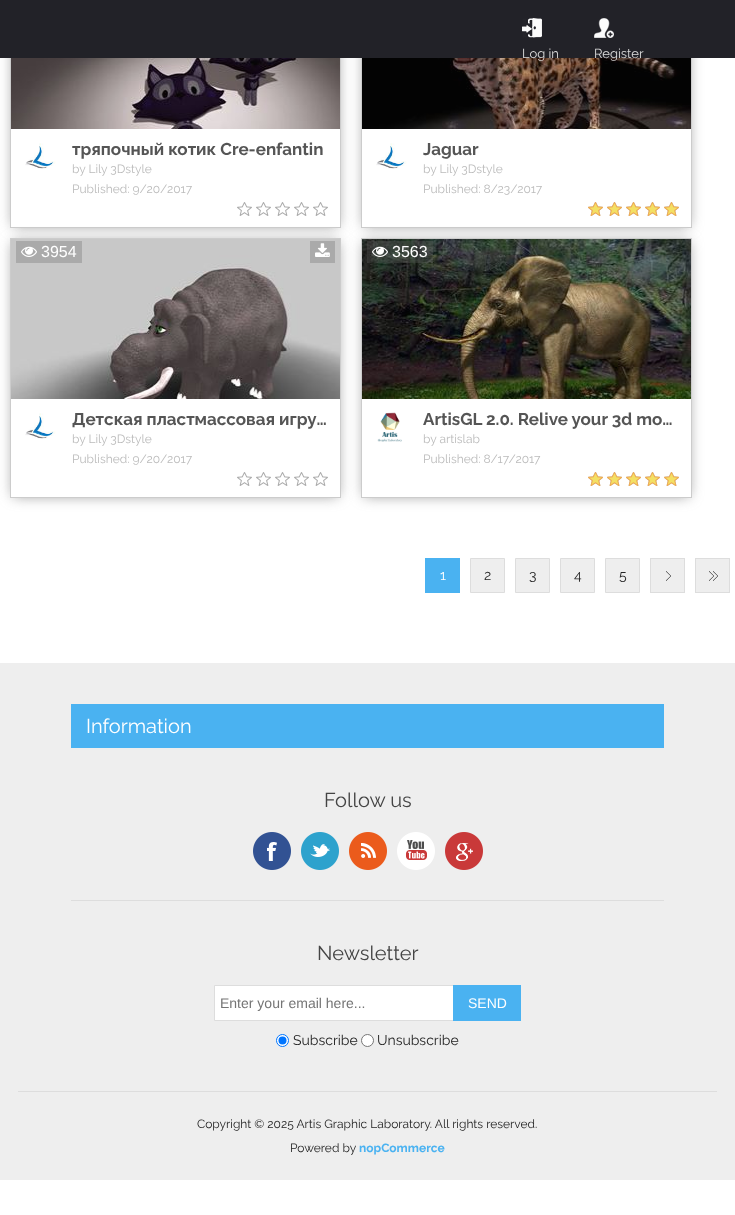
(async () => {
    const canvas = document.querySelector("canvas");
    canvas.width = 735;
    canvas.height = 1215;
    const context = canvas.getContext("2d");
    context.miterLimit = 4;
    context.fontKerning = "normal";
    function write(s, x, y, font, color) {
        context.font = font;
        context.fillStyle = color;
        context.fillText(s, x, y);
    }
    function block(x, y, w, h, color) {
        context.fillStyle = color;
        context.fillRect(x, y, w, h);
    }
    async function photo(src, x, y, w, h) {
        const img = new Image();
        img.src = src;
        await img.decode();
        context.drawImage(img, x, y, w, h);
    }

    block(0, 0, 735, 1215, "rgb(255, 255, 255)");
    context.save();
    context.beginPath();
    context.moveTo(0, 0);
    context.lineTo(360, 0);
    context.lineTo(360, 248);
    context.lineTo(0, 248);
    context.closePath();
    context.moveTo(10, -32);
    context.lineTo(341, -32);
    context.lineTo(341, 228);
    context.lineTo(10, 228);
    context.closePath();
    context.clip("evenodd");
    context.fillStyle = "rgba(117, 117, 117, 0.75)";
    context.filter = "blur(7px)";
    context.beginPath();
    context.rect(13, -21, 325, 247);
    context.fill();
    context.filter = "none";
    context.restore();
    context.strokeStyle = "rgb(204, 204, 204)";
    context.strokeRect(10.5, -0.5, 330, 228);
    context.save();
    context.beginPath();
    context.moveTo(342, 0);
    context.lineTo(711, 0);
    context.lineTo(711, 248);
    context.lineTo(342, 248);
    context.closePath();
    context.moveTo(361, -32);
    context.lineTo(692, -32);
    context.lineTo(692, 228);
    context.lineTo(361, 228);
    context.closePath();
    context.clip("evenodd");
    context.fillStyle = "rgba(117, 117, 117, 0.75)";
    context.filter = "blur(7px)";
    context.beginPath();
    context.rect(364, -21, 325, 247);
    context.fill();
    context.filter = "none";
    context.restore();
    context.strokeRect(361.5, -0.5, 330, 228);
    block(0, 0, 735, 58, "rgb(34, 34, 40)");
    await photo("media/1.png", 522, 18, 20, 20);
    await photo("media/6.png", 362, 58, 329, 71);
    write("Log in", 522, 58, "13px Raleway", "rgb(221, 221, 221)");
    await photo("media/2.png", 594, 18, 20, 20);
    write("Register", 594, 58, "13px Raleway", "rgb(221, 221, 221)");
    await photo("media/3.png", 11, 58, 329, 71);
    await photo("media/4.png", 25, 143, 31, 26);
    write("тряпочный котик Cre-enfantin", 72, 155, "bold 17px Raleway", "rgb(85, 85, 85)");
    write("by Lily 3Dstyle", 72, 173, "12px Raleway", "rgb(187, 187, 187)");
    write("Published: 9/20/2017", 72, 193, "12px Raleway", "rgb(187, 187, 187)");
    await photo("media/5.png", 237, 202, 91, 14);
    await photo("media/7.png", 376, 143, 31, 26);
    write("Jaguar", 423, 155, "bold 17px Raleway", "rgb(85, 85, 85)");
    write("by Lily 3Dstyle", 423, 173, "12px Raleway", "rgb(187, 187, 187)");
    write("Published: 8/23/2017", 423, 193, "12px Raleway", "rgb(187, 187, 187)");
    await photo("media/5.png", 588, 202, 91, 14);
    await photo("media/8.png", 588, 202, 91, 14);
    context.save();
    context.beginPath();
    context.moveTo(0, 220);
    context.lineTo(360, 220);
    context.lineTo(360, 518);
    context.lineTo(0, 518);
    context.closePath();
    context.moveTo(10, 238);
    context.lineTo(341, 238);
    context.lineTo(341, 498);
    context.lineTo(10, 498);
    context.closePath();
    context.clip("evenodd");
    context.fillStyle = "rgba(117, 117, 117, 0.75)";
    context.filter = "blur(7px)";
    context.beginPath();
    context.rect(13, 242, 325, 254);
    context.fill();
    context.filter = "none";
    context.restore();
    context.strokeRect(10.5, 238.5, 330, 259);
    await photo("media/9.png", 11, 239, 329, 160);
    block(16, 241, 66, 22, "rgb(170, 170, 170)");
    await photo("media/10.png", 21, 246, 16, 11);
    write("3954", 41, 257, "16px Liberation Sans", "rgb(255, 255, 255)");
    block(310, 241, 25, 22, "rgb(170, 170, 170)");
    await photo("media/11.png", 315, 243, 15, 14);
    await photo("media/4.png", 25, 413, 31, 26);
    write("Детская пластмассовая игру…", 72, 425, "bold 17px Raleway", "rgb(85, 85, 85)");
    write("by Lily 3Dstyle", 72, 443, "12px Raleway", "rgb(187, 187, 187)");
    write("Published: 9/20/2017", 72, 463, "12px Raleway", "rgb(187, 187, 187)");
    await photo("media/5.png", 237, 472, 91, 14);
    context.save();
    context.beginPath();
    context.moveTo(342, 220);
    context.lineTo(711, 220);
    context.lineTo(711, 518);
    context.lineTo(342, 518);
    context.closePath();
    context.moveTo(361, 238);
    context.lineTo(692, 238);
    context.lineTo(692, 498);
    context.lineTo(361, 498);
    context.closePath();
    context.clip("evenodd");
    context.fillStyle = "rgba(117, 117, 117, 0.75)";
    context.filter = "blur(7px)";
    context.beginPath();
    context.rect(364, 242, 325, 254);
    context.fill();
    context.filter = "none";
    context.restore();
    context.strokeRect(361.5, 238.5, 330, 259);
    await photo("media/12.png", 362, 239, 329, 160);
    block(367, 241, 66, 22, "rgba(100, 100, 100, 0.3)");
    await photo("media/13.png", 372, 246, 16, 11);
    write("3563", 392, 257, "16px Liberation Sans", "rgb(255, 255, 255)");
    await photo("media/14.png", 377, 412, 25, 30);
    write("ArtisGL 2.0. Relive your 3d mo…", 423, 425, "bold 17px Raleway", "rgb(85, 85, 85)");
    write("by artislab", 423, 443, "12px Raleway", "rgb(187, 187, 187)");
    write("Published: 8/17/2017", 423, 463, "12px Raleway", "rgb(187, 187, 187)");
    await photo("media/5.png", 588, 472, 91, 14);
    await photo("media/8.png", 588, 472, 91, 14);
    block(425, 558, 35, 35, "rgb(74, 178, 241)");
    write("1", 440, 580, "14px Raleway", "rgb(255, 255, 255)");
    context.fillStyle = "rgb(238, 238, 238)";
    context.beginPath();
    context.rect(470.5, 558.5, 34, 34);
    context.fill();
    context.strokeStyle = "rgb(221, 221, 221)";
    context.stroke();
    write("2", 484, 580, "14px Raleway", "rgb(35, 35, 35)");
    context.fillStyle = "rgb(238, 238, 238)";
    context.beginPath();
    context.rect(515.5, 558.5, 34, 34);
    context.fill();
    context.stroke();
    write("3", 529, 580, "14px Raleway", "rgb(35, 35, 35)");
    context.fillStyle = "rgb(238, 238, 238)";
    context.beginPath();
    context.rect(560.5, 558.5, 34, 34);
    context.fill();
    context.stroke();
    write("4", 574, 580, "14px Raleway", "rgb(35, 35, 35)");
    context.fillStyle = "rgb(238, 238, 238)";
    context.beginPath();
    context.rect(605.5, 558.5, 34, 34);
    context.fill();
    context.stroke();
    write("5", 619, 580, "14px Raleway", "rgb(35, 35, 35)");
    block(651, 559, 33, 33, "rgb(238, 238, 238)");
    await photo("media/15.png", 666, 571, 5, 10);
    context.strokeRect(650.5, 558.5, 34, 34);
    block(696, 559, 33, 33, "rgb(238, 238, 238)");
    await photo("media/16.png", 709, 571, 9, 10);
    context.strokeRect(695.5, 558.5, 34, 34);
    block(0, 663, 735, 517, "rgb(238, 238, 238)");
    block(18, 1091, 699, 1, "rgb(221, 221, 221)");
    block(71, 704, 593, 44, "rgb(74, 178, 241)");
    write("Information", 86, 733, "20px Raleway", "rgb(255, 255, 255)");
    write("Follow us", 324, 807, "20px Raleway", "rgb(68, 68, 68)");
    block(71, 900, 593, 1, "rgb(221, 221, 221)");
    await photo("media/17.png", 253, 832, 38, 38);
    await photo("media/18.png", 301, 832, 38, 38);
    await photo("media/19.png", 349, 832, 38, 38);
    await photo("media/20.png", 397, 832, 38, 38);
    await photo("media/21.png", 445, 832, 38, 38);
    write("Newsletter", 317, 960, "20px Raleway", "rgb(68, 68, 68)");
    context.fillStyle = "rgb(255, 255, 255)";
    context.beginPath();
    context.rect(214.5, 985.5, 239, 35);
    context.fill();
    context.stroke();
    write("Enter your email here...", 220, 1008, "14px Liberation Sans", "rgb(117, 117, 117)");
    block(453, 985, 68, 36, "rgb(74, 178, 241)");
    write("SEND", 468, 1008, "14px Liberation Sans", "rgb(255, 255, 255)");
    context.beginPath();
    context.arc(282.5, 1040.5, 6, 0, Math.PI * 2);
    context.fill();
    context.strokeStyle = "rgb(0, 117, 255)";
    context.stroke();
    context.fillStyle = "rgb(0, 117, 255)";
    context.beginPath();
    context.arc(282.5, 1040.5, 4, 0, Math.PI * 2);
    context.fill();
    write("Subscribe", 293, 1045, "14px Raleway", "rgb(35, 35, 35)");
    context.fillStyle = "rgb(255, 255, 255)";
    context.beginPath();
    context.arc(367.5, 1040.5, 6, 0, Math.PI * 2);
    context.fill();
    context.strokeStyle = "rgb(118, 118, 118)";
    context.stroke();
    write("Unsubscribe", 377, 1045, "14px Raleway", "rgb(35, 35, 35)");
    write("Copyright © 2025 Artis Graphic Laboratory. All rights reserved.", 197, 1128, "12px Raleway", "rgb(35, 35, 35)");
    write("Powered by", 290, 1152, "12px Raleway", "rgb(35, 35, 35)");
    write("nopCommerce", 359, 1152, "bold 12px Raleway", "rgb(74, 178, 241)");
})();
